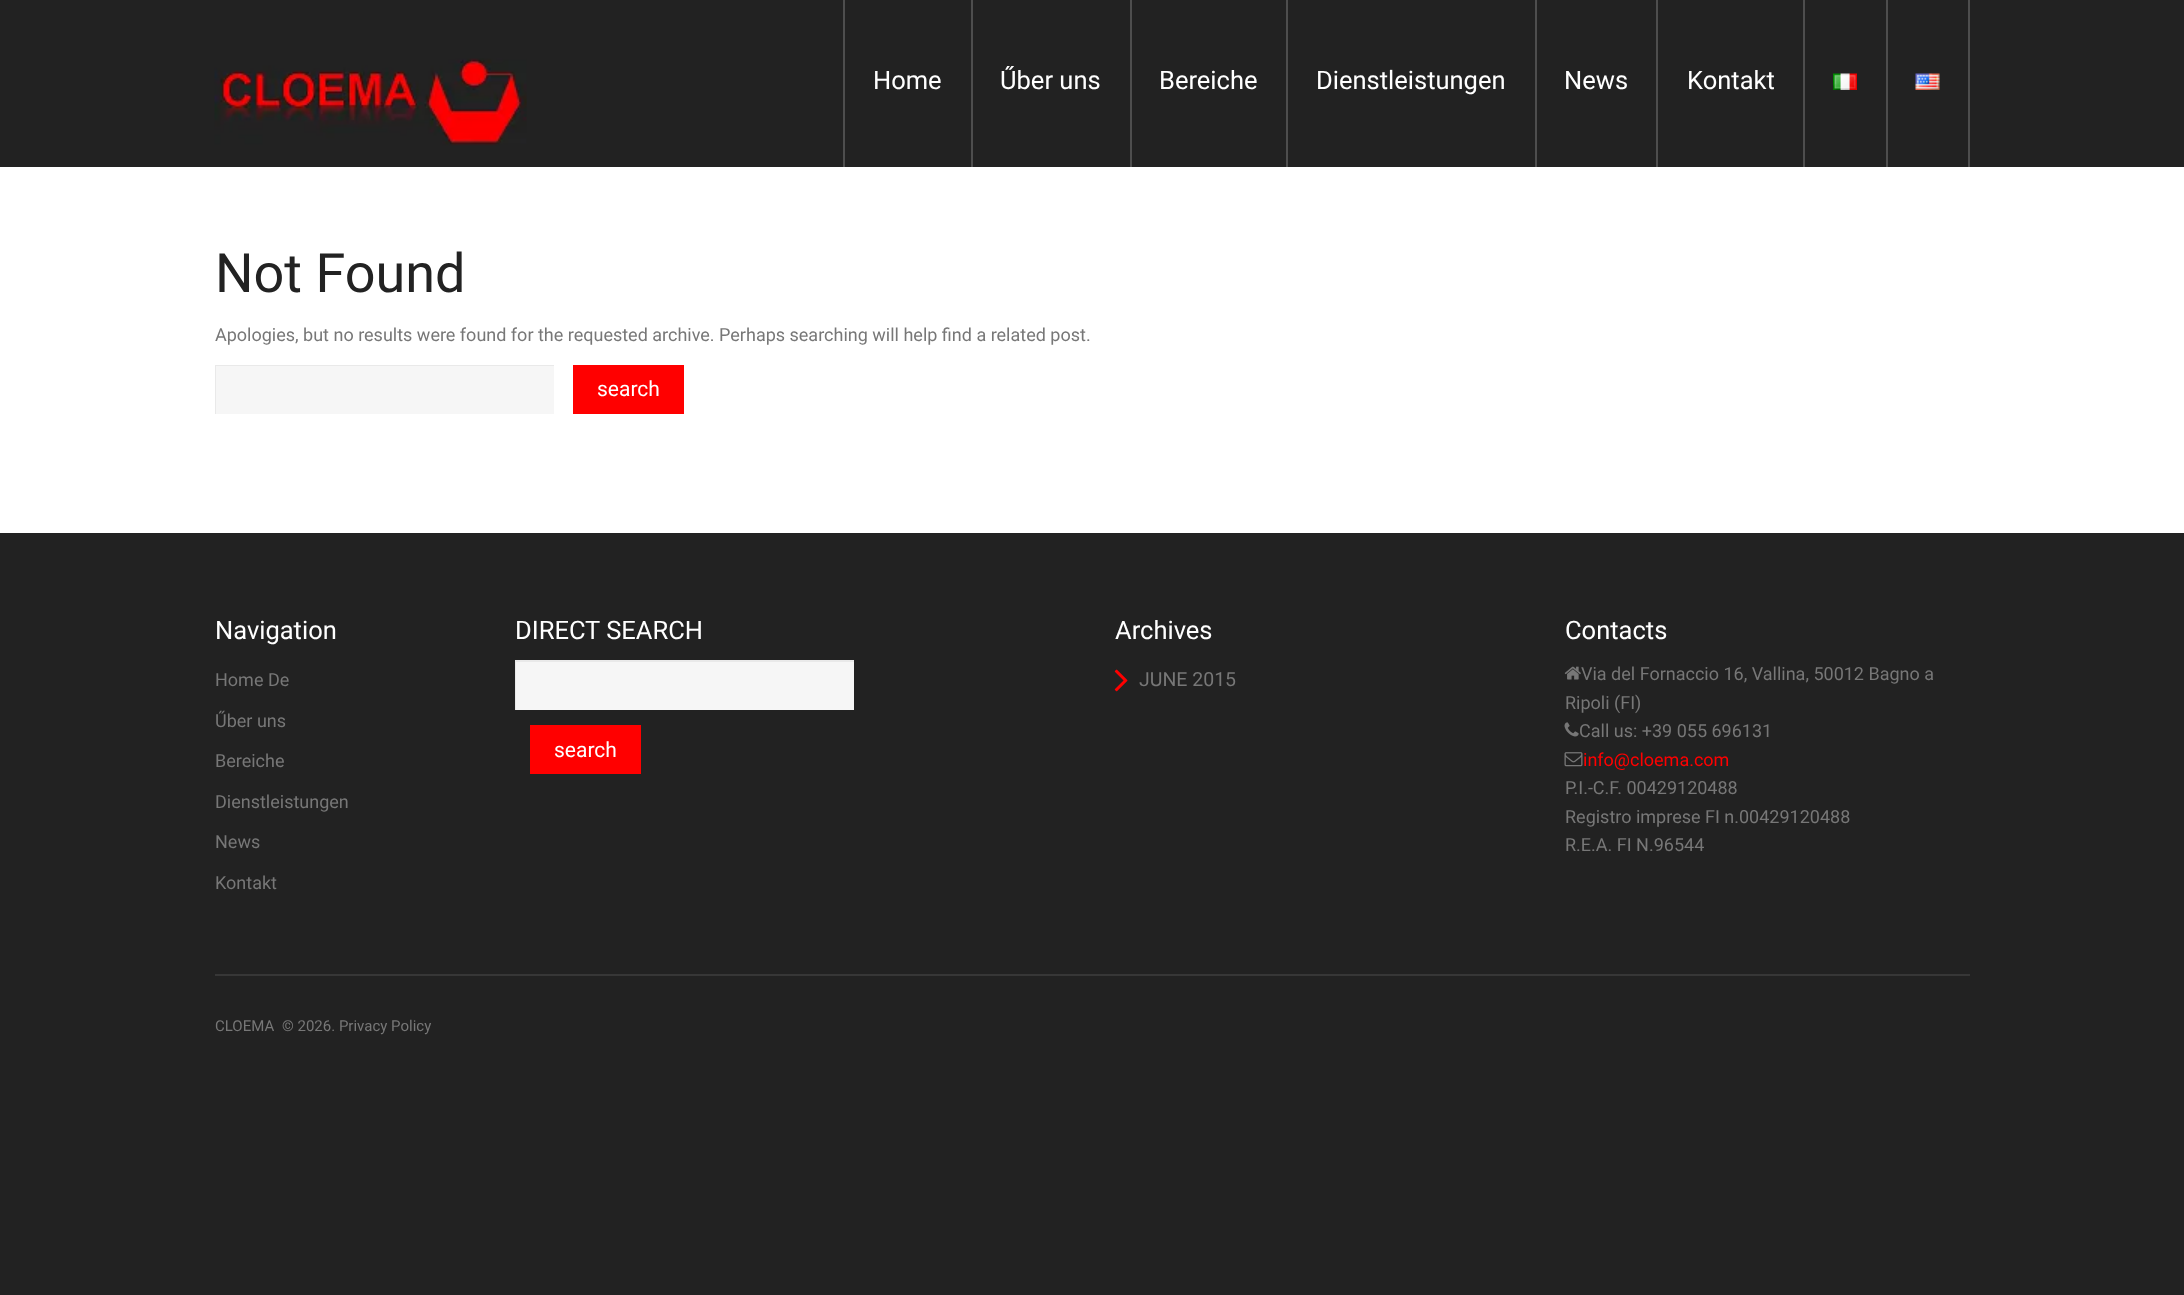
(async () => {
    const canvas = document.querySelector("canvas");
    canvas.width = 2184;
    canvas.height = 1295;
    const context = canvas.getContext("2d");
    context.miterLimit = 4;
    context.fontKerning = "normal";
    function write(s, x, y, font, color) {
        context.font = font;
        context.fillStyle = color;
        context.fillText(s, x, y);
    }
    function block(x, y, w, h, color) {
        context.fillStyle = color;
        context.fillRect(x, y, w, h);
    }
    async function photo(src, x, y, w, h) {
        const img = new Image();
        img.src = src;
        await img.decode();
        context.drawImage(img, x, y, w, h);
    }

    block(0, 0, 2184, 1295, "rgb(34, 34, 34)");
    await photo("media/1.png", 214, 58, 313, 88);
    block(971, 0, 2, 167, "rgb(78, 78, 78)");
    block(843, 0, 2, 167, "rgb(78, 78, 78)");
    write("Home", 873, 89, "25.5px Roboto", "rgb(255, 255, 255)");
    block(1130, 0, 2, 167, "rgb(78, 78, 78)");
    write("Űber uns", 1000, 89, "25.5px Roboto", "rgb(255, 255, 255)");
    block(1286, 0, 2, 167, "rgb(78, 78, 78)");
    write("Bereiche", 1159, 89, "25.5px Roboto", "rgb(255, 255, 255)");
    block(1535, 0, 2, 167, "rgb(78, 78, 78)");
    write("Dienstleistungen", 1316, 89, "25.5px Roboto", "rgb(255, 255, 255)");
    block(1656, 0, 2, 167, "rgb(78, 78, 78)");
    write("News", 1564, 89, "25.5px Roboto", "rgb(255, 255, 255)");
    block(1803, 0, 2, 167, "rgb(78, 78, 78)");
    write("Kontakt", 1687, 89, "25.5px Roboto", "rgb(255, 255, 255)");
    block(1886, 0, 2, 167, "rgb(78, 78, 78)");
    await photo("media/2.png", 1833, 73, 24, 17);
    block(1968, 0, 2, 167, "rgb(78, 78, 78)");
    await photo("media/3.png", 1915, 73, 25, 17);
    block(0, 167, 2184, 366, "rgb(255, 255, 255)");
    write("Not Found", 215, 292, "54px Roboto", "rgb(34, 34, 34)");
    write("Apologies, but no results were found for the requested archive. Perhaps searching will help find a related post.", 215, 341, "18px Roboto", "rgb(119, 119, 119)");
    block(216, 366, 338, 48, "rgb(246, 246, 246)");
    context.save();
    context.beginPath();
    context.rect(215, 365, 339, 49);
    context.clip();
    context.fillStyle = "rgb(233, 233, 233)";
    context.beginPath();
    context.moveTo(66, 216);
    context.lineTo(702, 216);
    context.lineTo(702, 562);
    context.lineTo(66, 562);
    context.closePath();
    context.moveTo(216, 366);
    context.lineTo(555, 366);
    context.lineTo(555, 416);
    context.lineTo(216, 416);
    context.closePath();
    context.fill("evenodd");
    context.restore();
    block(573, 365, 111, 49, "rgb(255, 0, 0)");
    write("search", 597, 396, "21px Roboto", "rgb(255, 255, 255)");
    write("Navigation", 215, 639, "25.5px Roboto", "rgb(255, 255, 255)");
    write("Home De", 215, 686, "18px Roboto", "rgb(119, 119, 119)");
    write("Űber uns", 215, 727, "18px Roboto", "rgb(119, 119, 119)");
    write("Bereiche", 215, 767, "18px Roboto", "rgb(119, 119, 119)");
    write("Dienstleistungen", 215, 808, "18px Roboto", "rgb(119, 119, 119)");
    write("News", 215, 848, "18px Roboto", "rgb(119, 119, 119)");
    write("Kontakt", 215, 889, "18px Roboto", "rgb(119, 119, 119)");
    write("DIRECT SEARCH", 515, 639, "25.5px Roboto", "rgb(255, 255, 255)");
    block(516, 662, 338, 48, "rgb(246, 246, 246)");
    context.save();
    context.beginPath();
    context.rect(515, 660, 339, 50);
    context.clip();
    context.fillStyle = "rgb(233, 233, 233)";
    context.beginPath();
    context.moveTo(366, 512);
    context.lineTo(1002, 512);
    context.lineTo(1002, 858);
    context.lineTo(366, 858);
    context.closePath();
    context.moveTo(516, 662);
    context.lineTo(855, 662);
    context.lineTo(855, 711);
    context.lineTo(516, 711);
    context.closePath();
    context.fill("evenodd");
    context.restore();
    block(530, 725, 111, 49, "rgb(255, 0, 0)");
    write("search", 554, 757, "21px Roboto", "rgb(255, 255, 255)");
    write("Archives", 1115, 639, "25.5px Roboto", "rgb(255, 255, 255)");
    await photo("media/4.png", 1114, 669, 14, 23);
    write("JUNE 2015", 1139, 686, "19.5px Roboto", "rgb(119, 119, 119)");
    write("Contacts", 1565, 639, "25.5px Roboto", "rgb(255, 255, 255)");
    await photo("media/5.png", 1564, 666, 17, 14);
    write("Via del Fornaccio 16, Vallina, 50012 Bagno a", 1581, 680, "18px Roboto", "rgb(119, 119, 119)");
    write("Ripoli (FI)", 1565, 709, "18px Roboto", "rgb(119, 119, 119)");
    await photo("media/6.png", 1564, 722, 15, 15);
    write("Call us: +39 055 696131", 1579, 737, "18px Roboto", "rgb(119, 119, 119)");
    await photo("media/7.png", 1564, 752, 19, 15);
    write("info@cloema.com", 1583, 766, "18px Roboto", "rgb(255, 0, 0)");
    write("P.I.-C.F. 00429120488", 1565, 794, "18px Roboto", "rgb(119, 119, 119)");
    write("Registro imprese FI n.00429120488", 1565, 823, "18px Roboto", "rgb(119, 119, 119)");
    write("R.E.A. FI N.96544", 1565, 851, "18px Roboto", "rgb(119, 119, 119)");
    block(215, 974, 1755, 2, "rgb(55, 55, 55)");
    write("CLOEMA", 215, 1031, "15px Roboto", "rgb(119, 119, 119)");
    write("© 2026. Privacy Policy", 282, 1031, "15px Roboto", "rgb(119, 119, 119)");
})();
